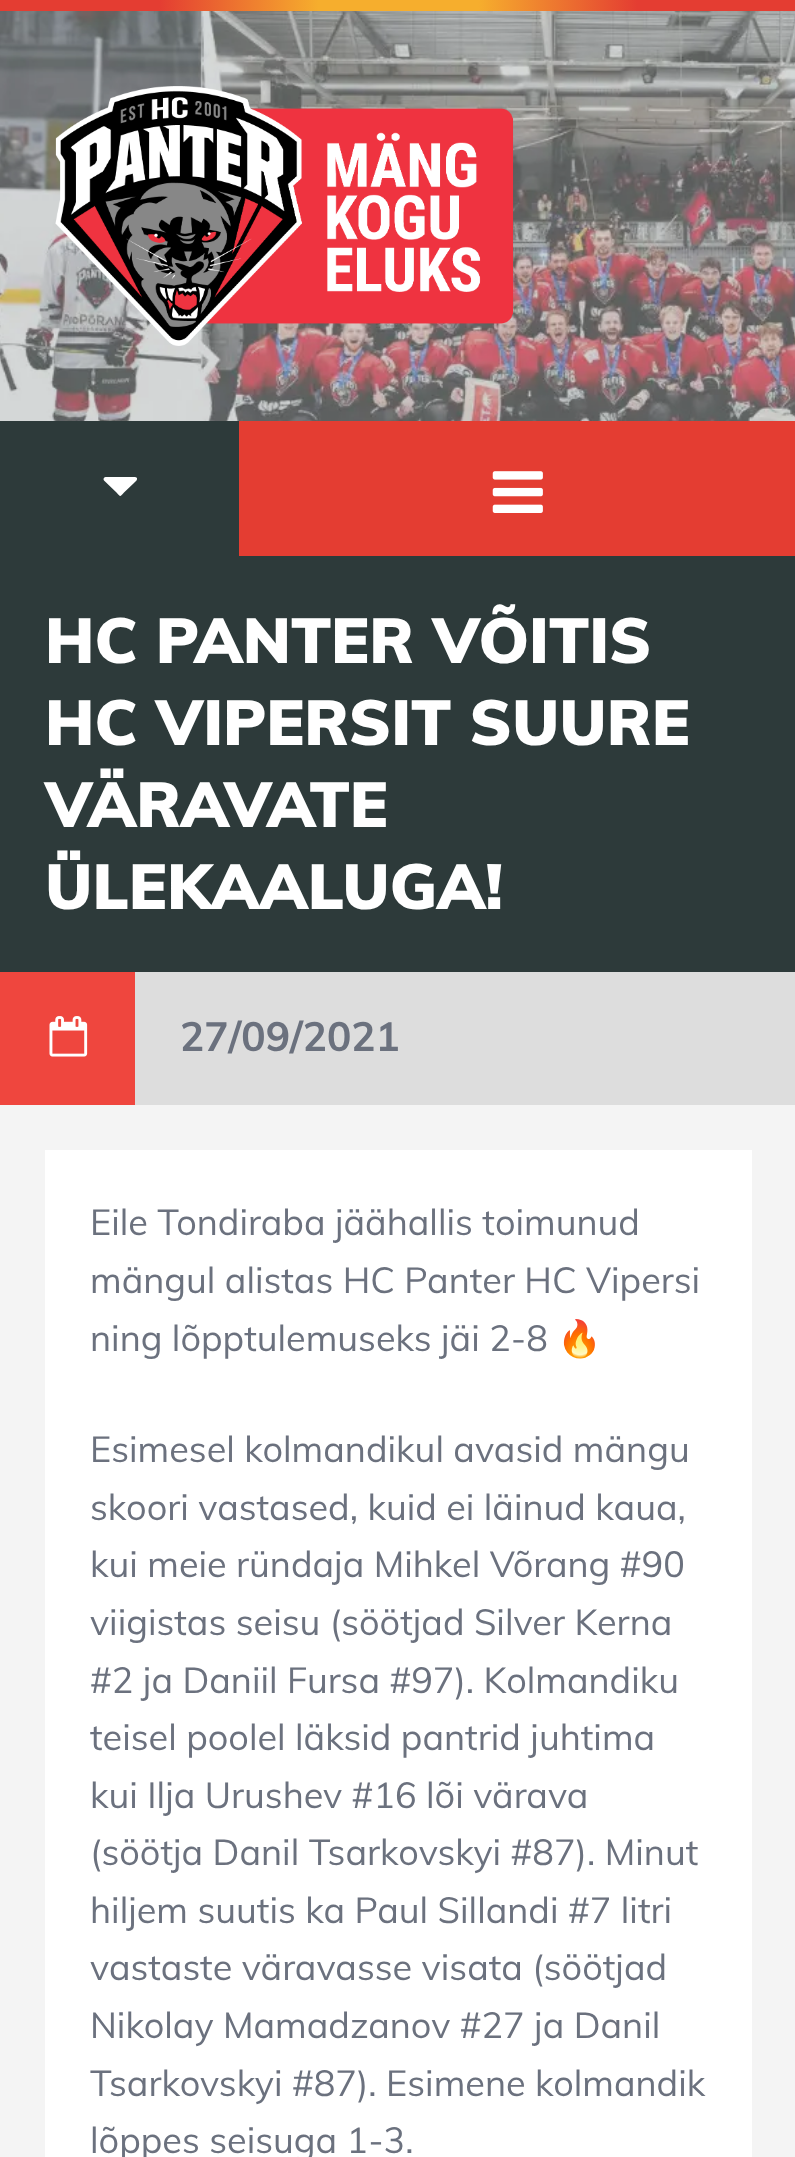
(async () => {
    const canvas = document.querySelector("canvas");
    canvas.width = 795;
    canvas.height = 2157;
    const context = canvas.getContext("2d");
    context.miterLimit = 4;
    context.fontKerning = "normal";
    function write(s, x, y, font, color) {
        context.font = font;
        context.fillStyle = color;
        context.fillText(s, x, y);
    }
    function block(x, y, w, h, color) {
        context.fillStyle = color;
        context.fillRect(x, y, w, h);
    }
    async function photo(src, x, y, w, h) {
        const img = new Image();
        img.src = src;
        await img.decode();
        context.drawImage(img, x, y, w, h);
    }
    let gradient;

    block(0, 0, 795, 2157, "rgb(244, 244, 244)");
    gradient = context.createLinearGradient(0, 5.6, 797, 5.6);
    gradient.addColorStop(0, "rgb(228, 61, 50)");
    gradient.addColorStop(0.2, "rgb(228, 61, 50)");
    gradient.addColorStop(0.4, "rgb(246, 174, 45)");
    gradient.addColorStop(0.6, "rgb(246, 174, 45)");
    gradient.addColorStop(0.8, "rgb(228, 61, 50)");
    gradient.addColorStop(1, "rgb(228, 61, 50)");
    context.fillStyle = gradient;
    context.fillRect(0, 0, 795, 11);
    await photo("media/1.png", 0, 11, 795, 410);
    await photo("media/2.png", 55, 86, 459, 260);
    block(0, 421, 239, 135, "rgb(45, 58, 58)");
    context.fillStyle = "rgb(255, 255, 255)";
    context.beginPath();
    context.moveTo(136.5, 477.5);
    context.bezierCurveTo(138.5, 479.5, 135, 482, 134, 483);
    context.lineTo(124, 492.5);
    context.bezierCurveTo(120, 497, 120.5, 497, 116.5, 492.5);
    context.lineTo(104, 480.5);
    context.bezierCurveTo(103, 479.5, 103.5, 477, 105.5, 477);
    context.lineTo(135, 477);
    context.closePath();
    context.fill();
    block(239, 421, 556, 135, "rgb(228, 61, 50)");
    await photo("media/3.png", 492, 471, 51, 42);
    block(0, 556, 795, 416, "rgb(45, 58, 58)");
    write("HC PANTER VÕITIS", 45, 663, "900 63px Muli", "rgb(255, 255, 255)");
    write("HC VIPERSIT SUURE", 45, 745, "900 63px Muli", "rgb(255, 255, 255)");
    write("VÄRAVATE", 45, 827, "900 63px Muli", "rgb(255, 255, 255)");
    write("ÜLEKAALUGA!", 45, 909, "900 63px Muli", "rgb(255, 255, 255)");
    block(135, 972, 660, 133, "rgb(221, 221, 221)");
    block(0, 972, 135, 133, "rgb(239, 70, 62)");
    await photo("media/4.png", 49, 1016, 39, 41);
    write("27/09/2021", 180, 1051, "bold 40.5px Muli", "rgb(107, 113, 126)");
    block(45, 1150, 707, 1007, "rgb(255, 255, 255)");
    write("Eile Tondiraba jäähallis toimunud", 90, 1235, "36px Muli", "rgb(107, 113, 126)");
    write("mängul alistas HC Panter HC Vipersi", 90, 1293, "36px Muli", "rgb(107, 113, 126)");
    write("ning lõpptulemuseks jäi 2-8", 90, 1351, "36px Muli", "rgb(107, 113, 126)");
    write("🔥", 557, 1351, "36px Noto Color Emoji", "rgb(107, 113, 126)");
    write("Esimesel kolmandikul avasid mängu", 90, 1462, "36px Muli", "rgb(107, 113, 126)");
    write("skoori vastased, kuid ei läinud kaua,", 90, 1520, "36px Muli", "rgb(107, 113, 126)");
    write("kui meie ründaja Mihkel Võrang #90", 90, 1577, "36px Muli", "rgb(107, 113, 126)");
    write("viigistas seisu (söötjad Silver Kerna", 90, 1635, "36px Muli", "rgb(107, 113, 126)");
    write("#2 ja Daniil Fursa #97). Kolmandiku", 90, 1693, "36px Muli", "rgb(107, 113, 126)");
    write("teisel poolel läksid pantrid juhtima", 90, 1750, "36px Muli", "rgb(107, 113, 126)");
    write("kui Ilja Urushev #16 lõi värava", 90, 1808, "36px Muli", "rgb(107, 113, 126)");
    write("(söötja Danil Tsarkovskyi #87). Minut", 90, 1865, "36px Muli", "rgb(107, 113, 126)");
    write("hiljem suutis ka Paul Sillandi #7 litri", 90, 1923, "36px Muli", "rgb(107, 113, 126)");
    write("vastaste väravasse visata (söötjad", 90, 1980, "36px Muli", "rgb(107, 113, 126)");
    write("Nikolay Mamadzanov #27 ja Danil", 90, 2038, "36px Muli", "rgb(107, 113, 126)");
    write("Tsarkovskyi #87). Esimene kolmandik", 90, 2096, "36px Muli", "rgb(107, 113, 126)");
    write("lõppes seisuga 1-3.", 90, 2153, "36px Muli", "rgb(107, 113, 126)");
})();
